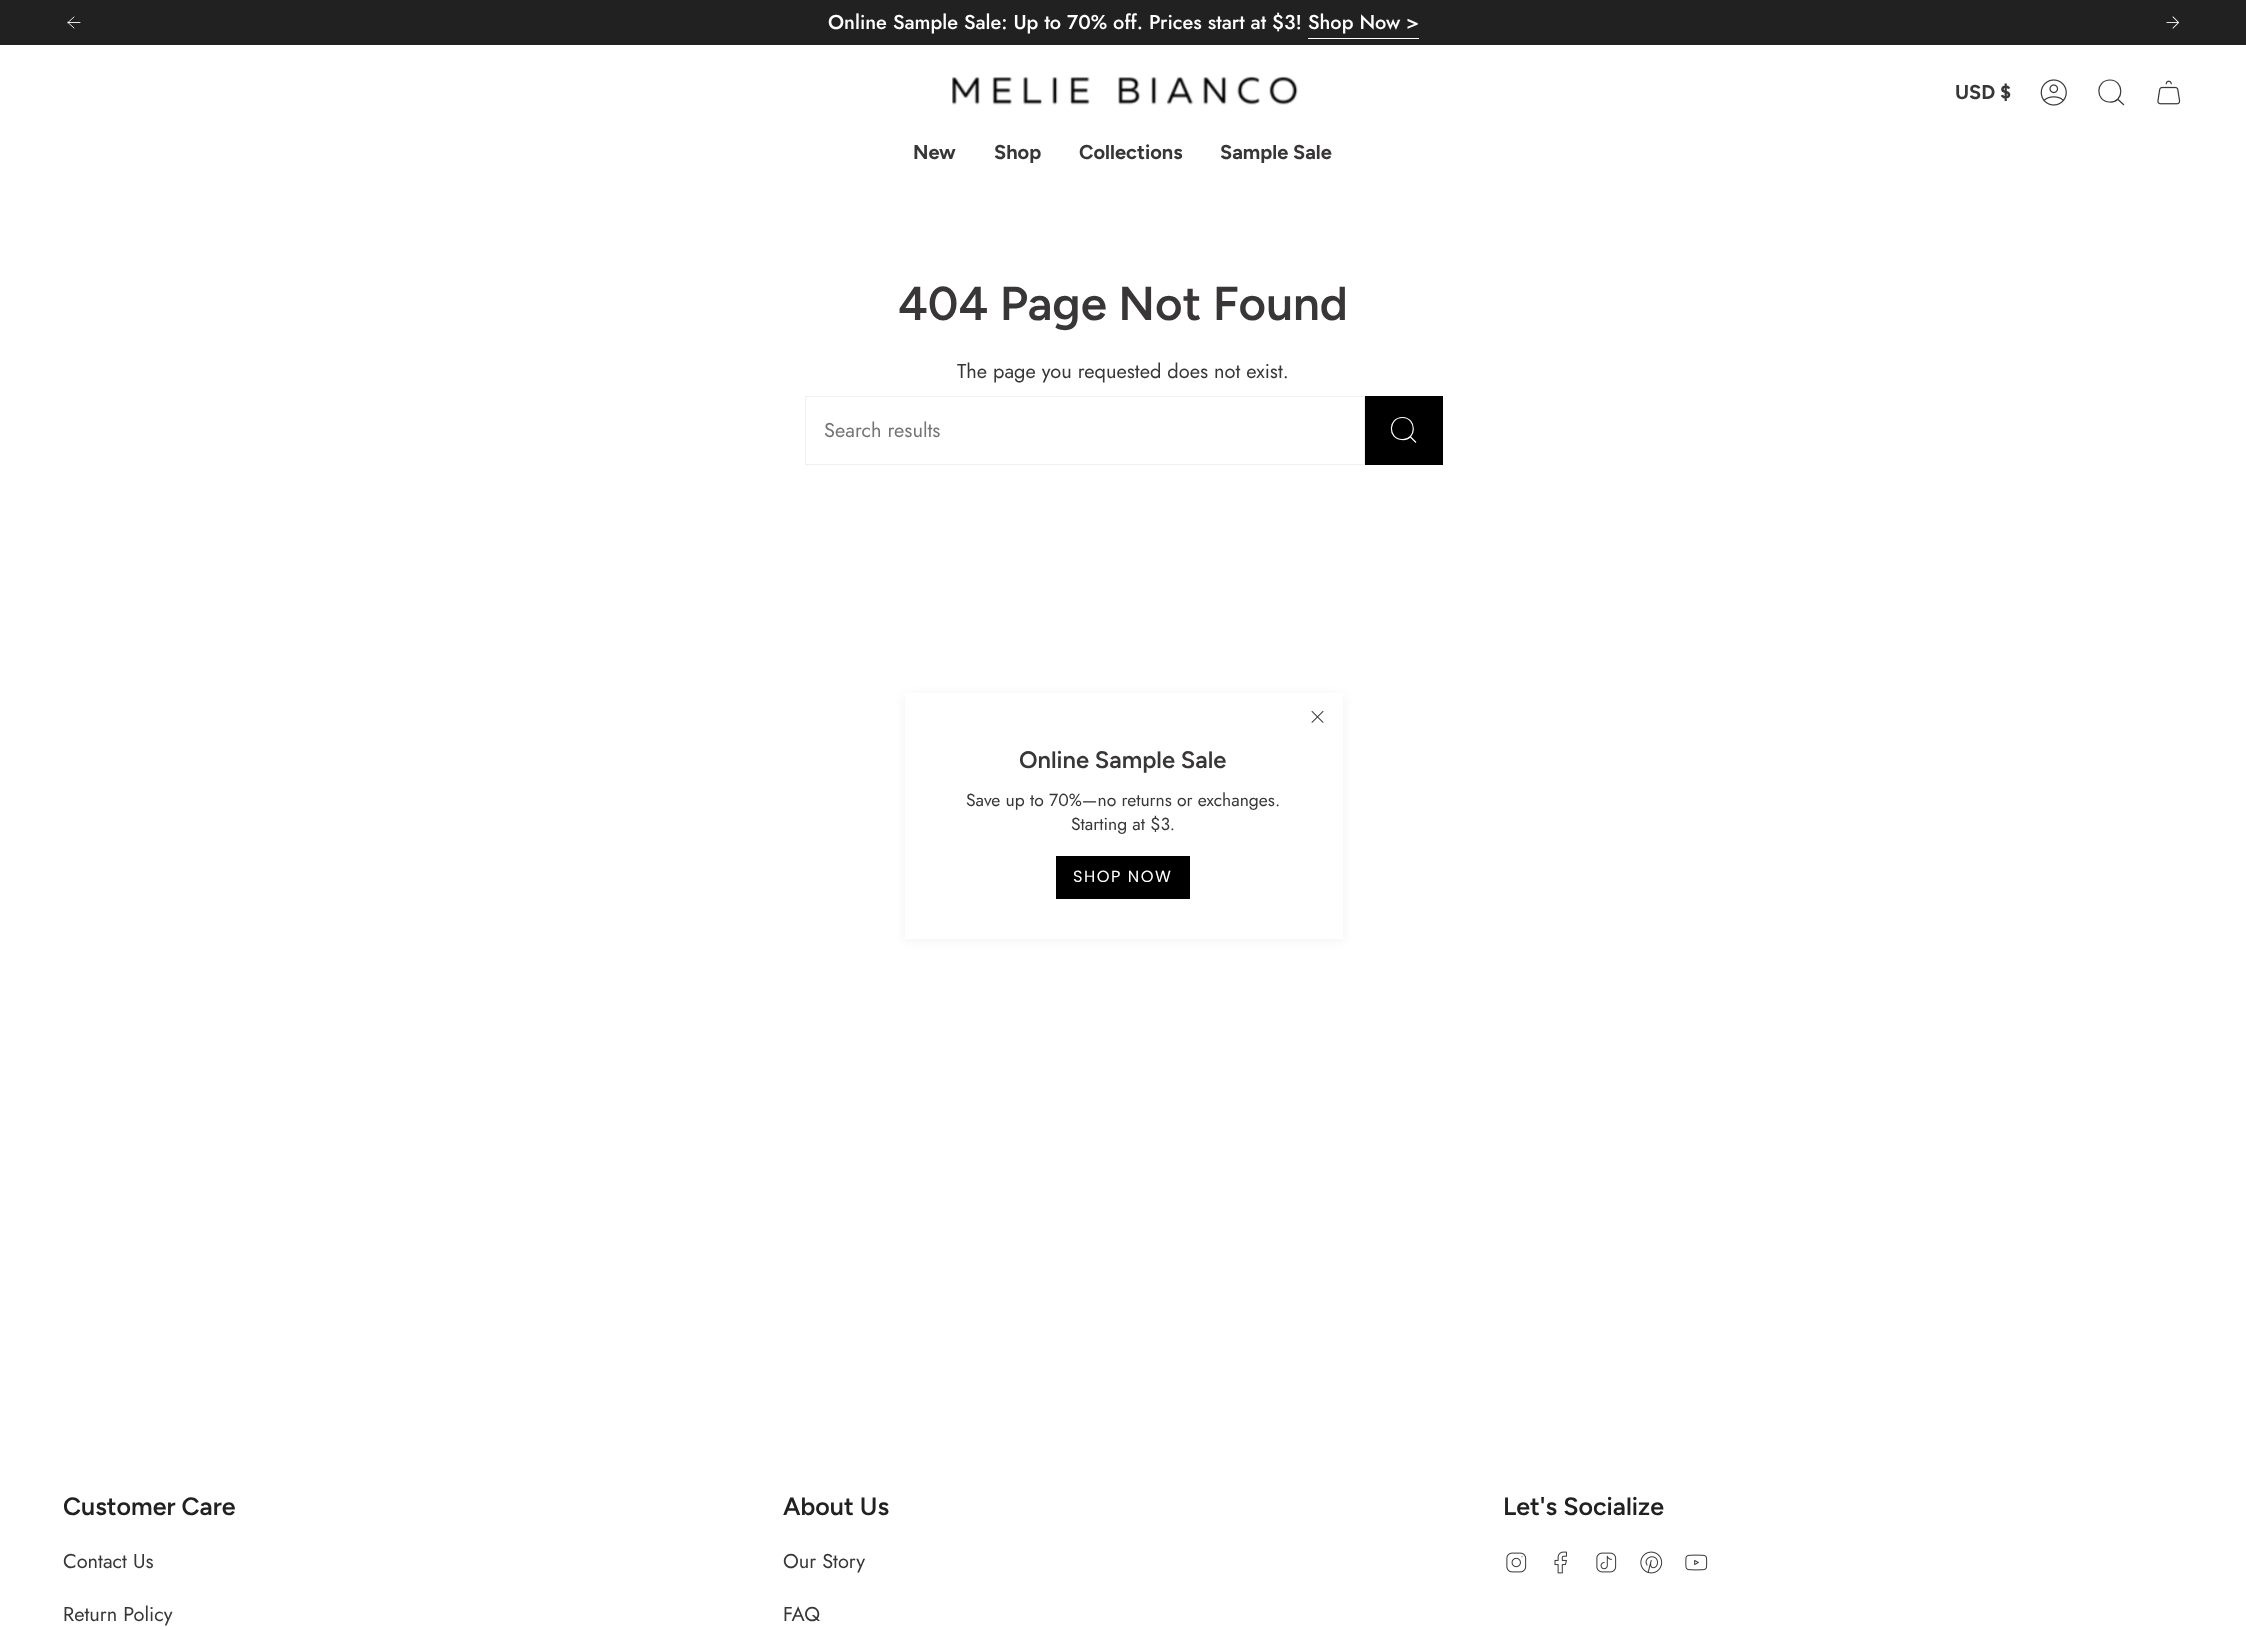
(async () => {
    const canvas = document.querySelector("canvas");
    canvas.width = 2246;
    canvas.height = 1630;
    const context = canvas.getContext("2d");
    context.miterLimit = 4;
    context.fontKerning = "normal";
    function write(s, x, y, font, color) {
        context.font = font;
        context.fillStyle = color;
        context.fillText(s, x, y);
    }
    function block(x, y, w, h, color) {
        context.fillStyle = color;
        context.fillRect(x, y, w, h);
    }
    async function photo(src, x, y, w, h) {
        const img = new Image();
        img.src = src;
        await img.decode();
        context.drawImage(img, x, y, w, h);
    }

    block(0, 0, 2246, 1630, "rgb(255, 255, 255)");
    block(0, 0, 2246, 45, "rgb(33, 33, 33)");
    context.beginPath();
    context.moveTo(80, 22.5);
    context.lineTo(68, 22.5);
    context.moveTo(68, 22.5);
    context.lineTo(74, 17);
    context.moveTo(68, 22.5);
    context.lineTo(74, 28);
    context.strokeStyle = "rgb(255, 255, 255)";
    context.lineWidth = 0.9;
    context.lineCap = "round";
    context.lineJoin = "round";
    context.stroke();
    write("Online Sample Sale: Up to 70% off. Prices start at $3! Shop Now >", 828, 29, "500 20px Jost", "rgb(255, 255, 255)");
    block(1308, 38, 111, 1, "rgb(255, 255, 255)");
    await photo("media/1.png", 2166, 16, 13, 13);
    await photo("media/2.png", 952, 76, 346, 29);
    write("USD $", 1955, 99, "bold 20px Figtree", "rgb(56, 54, 54)");
    await photo("media/3.png", 2040, 79, 27, 27);
    context.beginPath();
    context.moveTo(2110, 80);
    context.bezierCurveTo(2124.5, 80, 2124.5, 103, 2109.5, 102);
    context.bezierCurveTo(2095, 101.5, 2095.5, 80, 2110, 80);
    context.closePath();
    context.moveTo(2117.5, 99);
    context.lineTo(2124, 105);
    context.strokeStyle = "rgb(56, 54, 54)";
    context.lineWidth = 1.2;
    context.lineCap = "butt";
    context.lineJoin = "miter";
    context.stroke();
    await photo("media/4.png", 2157, 80, 24, 25);
    write("New", 913, 159, "bold 20px Figtree", "rgb(56, 54, 54)");
    write("Shop", 994, 159, "bold 20px Figtree", "rgb(56, 54, 54)");
    write("Collections", 1079, 159, "bold 20px Figtree", "rgb(56, 54, 54)");
    write("Sample Sale", 1220, 159, "bold 20px Figtree", "rgb(56, 54, 54)");
    write("404 Page Not Found", 898, 320, "600 47.5px Figtree", "rgb(56, 54, 54)");
    write("The page you requested does not exist.", 957, 378, "20px Jost", "rgb(56, 54, 54)");
    context.strokeStyle = "rgb(240, 240, 240)";
    context.lineWidth = 1;
    context.strokeRect(805.5, 396.5, 559, 68);
    write("Search results", 824, 437, "20px Jost", "rgb(117, 117, 117)");
    block(1365, 396, 78, 69, "rgb(0, 0, 0)");
    context.beginPath();
    context.moveTo(1402.5, 417.5);
    context.bezierCurveTo(1417, 417.5, 1417, 440.5, 1402, 439.5);
    context.bezierCurveTo(1387.5, 439, 1388, 417.5, 1402.5, 417.5);
    context.closePath();
    context.moveTo(1410, 436.5);
    context.lineTo(1416, 442.5);
    context.strokeStyle = "rgb(255, 255, 255)";
    context.lineWidth = 1.2;
    context.stroke();
    context.fillStyle = "rgba(0, 0, 0, 0.05)";
    context.filter = "blur(6px)";
    context.beginPath();
    context.rect(905, 695, 438, 246);
    context.fill();
    context.filter = "none";
    block(905, 693, 438, 246, "rgb(255, 255, 255)");
    await photo("media/5.png", 1311, 711, 13, 12);
    write("Online Sample Sale", 1019, 768, "600 23.75px Figtree", "rgb(56, 54, 54)");
    write("Save up to 70%—no returns or exchanges.", 966, 806, "17.5px Jost", "rgb(56, 54, 54)");
    write("Starting at $3.", 1071, 830, "17.5px Jost", "rgb(56, 54, 54)");
    block(1056, 856, 134, 43, "rgb(0, 0, 0)");
    context.letterSpacing = "1.5px";
    write("SHOP NOW", 1073, 882, "16.25px Poppins", "rgb(255, 255, 255)");
    context.letterSpacing = "0px";
    write("Customer Care", 63, 1515, "600 25px Figtree", "rgb(33, 33, 33)");
    write("Contact Us", 63, 1568, "20px Jost", "rgb(56, 54, 54)");
    write("Return Policy", 63, 1621, "20px Jost", "rgb(56, 54, 54)");
    write("About Us", 783, 1515, "600 25px Figtree", "rgb(33, 33, 33)");
    write("Our Story", 783, 1568, "20px Jost", "rgb(56, 54, 54)");
    write("FAQ", 783, 1621, "20px Jost", "rgb(56, 54, 54)");
    write("Let's Socialize", 1503, 1515, "600 25px Figtree", "rgb(33, 33, 33)");
    await photo("media/6.png", 1506, 1552, 21, 21);
    await photo("media/7.png", 1554, 1551, 13, 23);
    await photo("media/8.png", 1596, 1552, 21, 21);
    await photo("media/9.png", 1640, 1551, 23, 23);
    await photo("media/10.png", 1685, 1554, 23, 17);
})();
